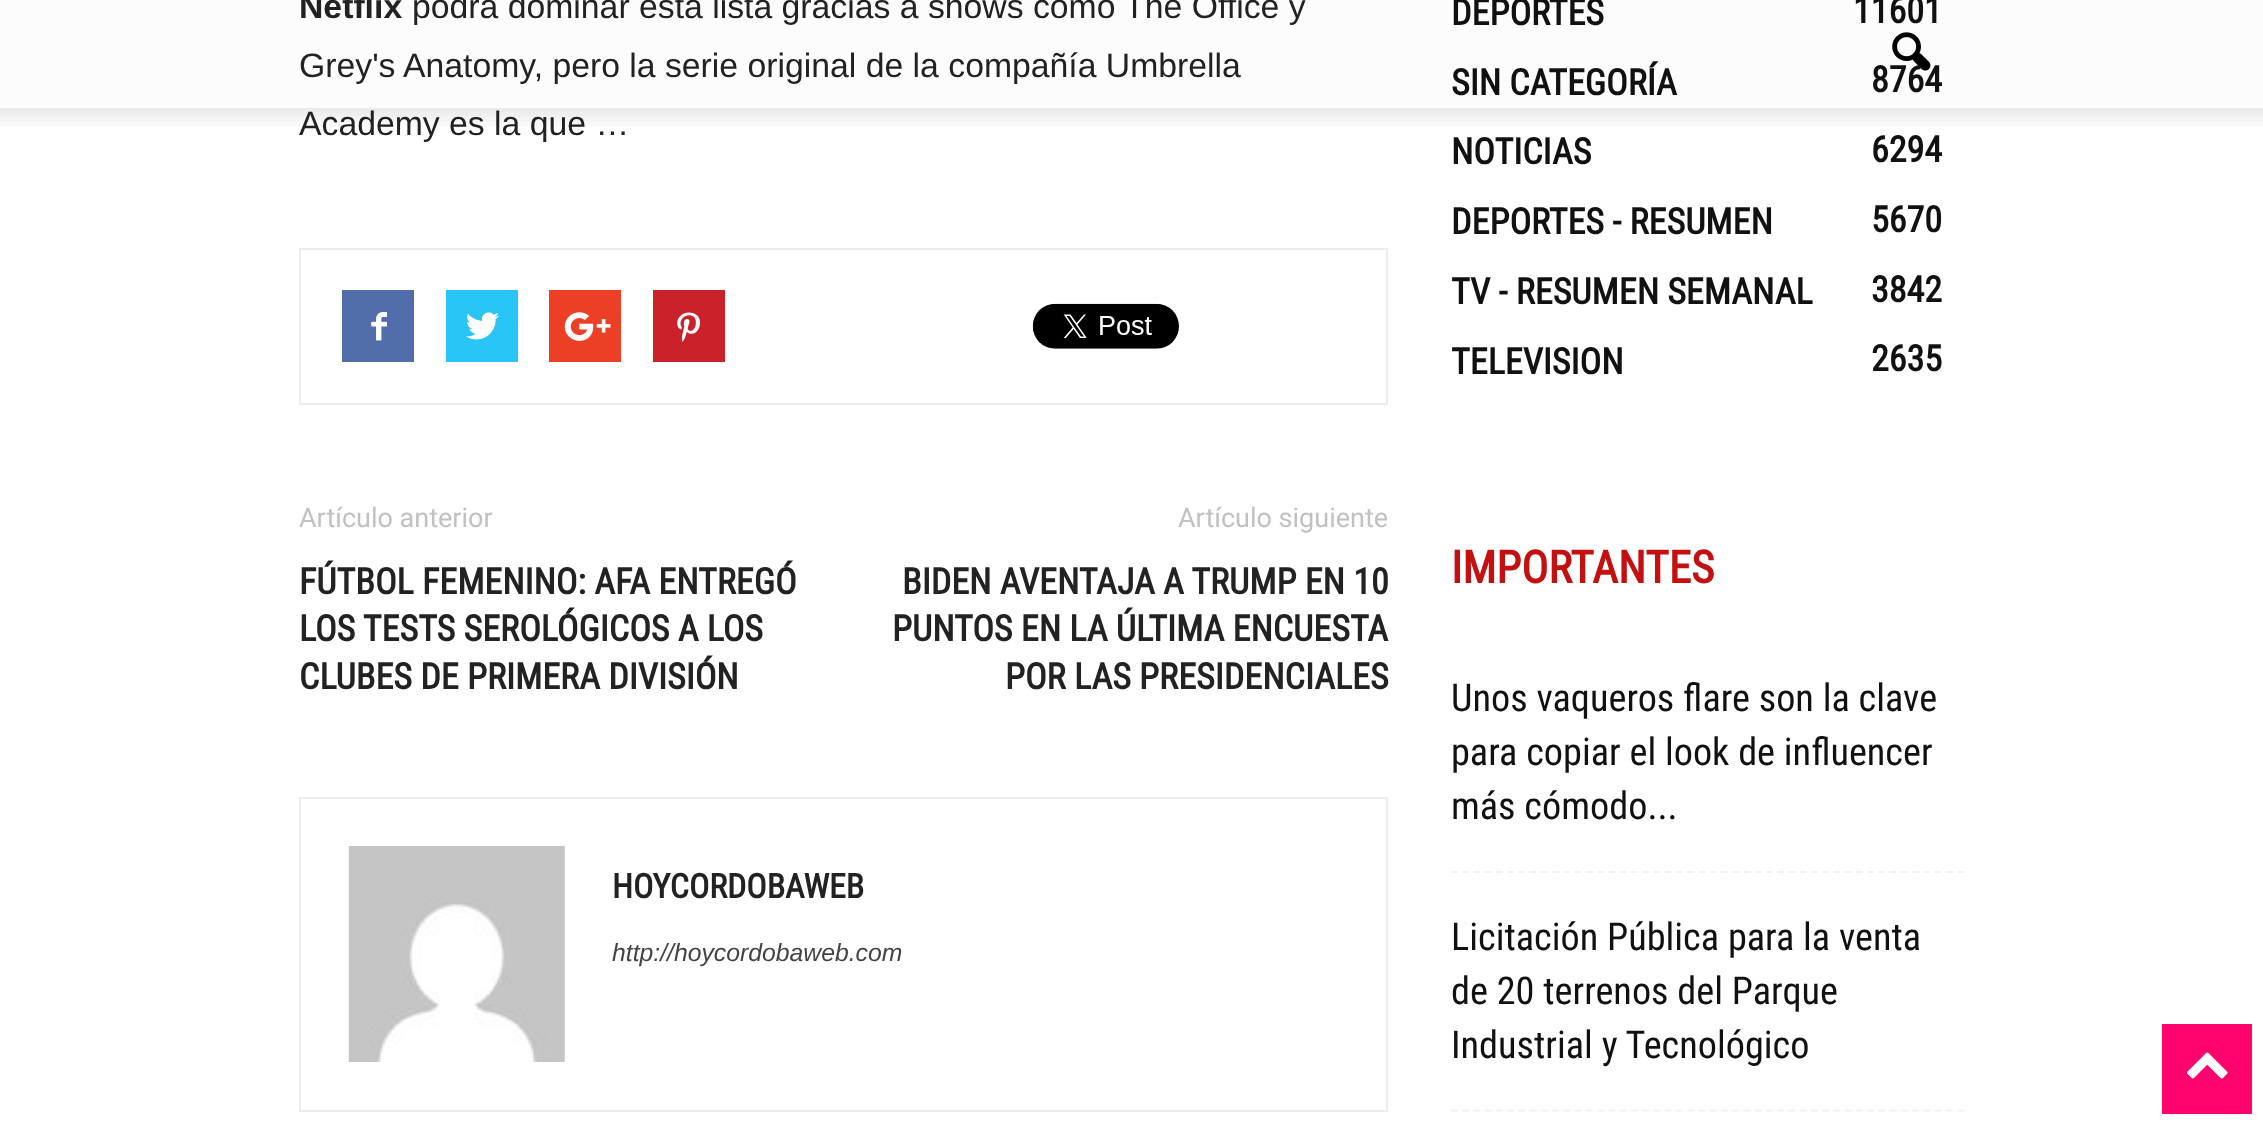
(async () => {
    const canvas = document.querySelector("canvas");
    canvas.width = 2263;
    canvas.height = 1122;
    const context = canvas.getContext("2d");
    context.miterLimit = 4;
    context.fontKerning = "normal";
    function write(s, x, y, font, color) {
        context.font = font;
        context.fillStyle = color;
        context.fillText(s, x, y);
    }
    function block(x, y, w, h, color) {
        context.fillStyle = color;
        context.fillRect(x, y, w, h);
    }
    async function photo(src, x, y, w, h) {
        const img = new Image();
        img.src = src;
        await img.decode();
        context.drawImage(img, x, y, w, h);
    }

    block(0, 0, 2263, 1122, "rgb(255, 255, 255)");
    block(0, 0, 2263, 108, "rgb(253, 252, 252)");
    write("Netflix", 299, 18, "bold 33.75px Liberation Sans", "rgb(34, 34, 34)");
    write("podrá dominar esta lista gracias a shows como The Office y", 412, 18, "33.75px Liberation Sans", "rgb(34, 34, 34)");
    write("Grey's Anatomy, pero la serie original de la compañía Umbrella", 299, 77, "33.75px Liberation Sans", "rgb(34, 34, 34)");
    write("Academy es la que …", 299, 135, "33.75px Liberation Sans", "rgb(34, 34, 34)");
    context.strokeStyle = "rgb(237, 237, 237)";
    context.lineWidth = 2;
    context.strokeRect(300, 249, 1087, 155);
    block(342, 290, 72, 72, "rgb(81, 110, 171)");
    await photo("media/1.png", 371, 312, 16, 29);
    block(446, 290, 72, 72, "rgb(41, 197, 246)");
    await photo("media/2.png", 466, 312, 33, 28);
    block(549, 290, 72, 72, "rgb(235, 64, 38)");
    await photo("media/3.png", 564, 312, 47, 29);
    block(653, 290, 72, 72, "rgb(202, 33, 42)");
    await photo("media/4.png", 677, 312, 23, 30);
    await photo("media/5.png", 1032, 303, 147, 46);
    write("Artículo anterior", 299, 527, "27px Roboto", "rgb(193, 193, 193)");
    write("FÚTBOL FEMENINO: AFA ENTREGÓ", 299, 594, "bold 36px Roboto Condensed", "rgb(34, 34, 34)");
    write("LOS TESTS SEROLÓGICOS A LOS", 299, 641, "bold 36px Roboto Condensed", "rgb(34, 34, 34)");
    write("CLUBES DE PRIMERA DIVISIÓN", 299, 689, "bold 36px Roboto Condensed", "rgb(34, 34, 34)");
    write("Artículo siguiente", 1178, 527, "27px Roboto", "rgb(193, 193, 193)");
    write("BIDEN AVENTAJA A TRUMP EN 10", 902, 594, "bold 36px Roboto Condensed", "rgb(34, 34, 34)");
    write("PUNTOS EN LA ÚLTIMA ENCUESTA", 892, 641, "bold 36px Roboto Condensed", "rgb(34, 34, 34)");
    write("POR LAS PRESIDENCIALES", 1005, 689, "bold 36px Roboto Condensed", "rgb(34, 34, 34)");
    context.strokeRect(300, 798, 1087, 313);
    await photo("media/6.png", 348, 846, 217, 216);
    write("HOYCORDOBAWEB", 612, 898, "bold 33.75px Roboto Condensed", "rgb(34, 34, 34)");
    write("http://hoycordobaweb.com", 612, 961, "italic 24.75px Liberation Sans", "rgb(68, 68, 68)");
    write("DEPORTES", 1451, 25, "bold 36px Roboto Condensed", "rgb(17, 17, 17)");
    write("11601", 1853, 23, "bold 36px Roboto Condensed", "rgb(17, 17, 17)");
    write("SIN CATEGORÍA", 1451, 95, "bold 36px Roboto Condensed", "rgb(17, 17, 17)");
    write("8764", 1871, 92, "bold 36px Roboto Condensed", "rgb(17, 17, 17)");
    write("NOTICIAS", 1451, 164, "bold 36px Roboto Condensed", "rgb(17, 17, 17)");
    write("6294", 1871, 162, "bold 36px Roboto Condensed", "rgb(17, 17, 17)");
    write("DEPORTES - RESUMEN", 1451, 234, "bold 36px Roboto Condensed", "rgb(17, 17, 17)");
    write("5670", 1871, 232, "bold 36px Roboto Condensed", "rgb(17, 17, 17)");
    write("TV - RESUMEN SEMANAL", 1451, 304, "bold 36px Roboto Condensed", "rgb(17, 17, 17)");
    write("3842", 1871, 302, "bold 36px Roboto Condensed", "rgb(17, 17, 17)");
    write("TELEVISION", 1451, 374, "bold 36px Roboto Condensed", "rgb(17, 17, 17)");
    write("2635", 1871, 371, "bold 36px Roboto Condensed", "rgb(17, 17, 17)");
    write("IMPORTANTES", 1451, 583, "bold 45px Roboto Condensed", "rgb(195, 16, 16)");
    context.beginPath();
    context.moveTo(1451, 872);
    context.lineTo(1964, 872);
    context.strokeStyle = "rgb(242, 242, 242)";
    context.lineWidth = 2.2;
    context.setLineDash([6.75, 4.5]);
    context.stroke();
    write("Unos vaqueros flare son la clave", 1451, 711, "38.25px Roboto Condensed", "rgb(17, 17, 17)");
    write("para copiar el look de influencer", 1451, 765, "38.25px Roboto Condensed", "rgb(17, 17, 17)");
    write("más cómodo...", 1451, 819, "38.25px Roboto Condensed", "rgb(17, 17, 17)");
    context.beginPath();
    context.moveTo(1451, 1110.5);
    context.lineTo(1964, 1110.5);
    context.stroke();
    write("Licitación Pública para la venta", 1451, 950, "38.25px Roboto Condensed", "rgb(17, 17, 17)");
    write("de 20 terrenos del Parque", 1451, 1004, "38.25px Roboto Condensed", "rgb(17, 17, 17)");
    write("Industrial y Tecnológico", 1451, 1058, "38.25px Roboto Condensed", "rgb(17, 17, 17)");
    await photo("media/7.png", 1892, 32, 39, 39);
    await photo("media/8.png", 0, 108, 2263, 19);
    block(2162, 1024, 90, 90, "rgb(255, 3, 110)");
    await photo("media/9.png", 2187, 1052, 41, 27);
})();
